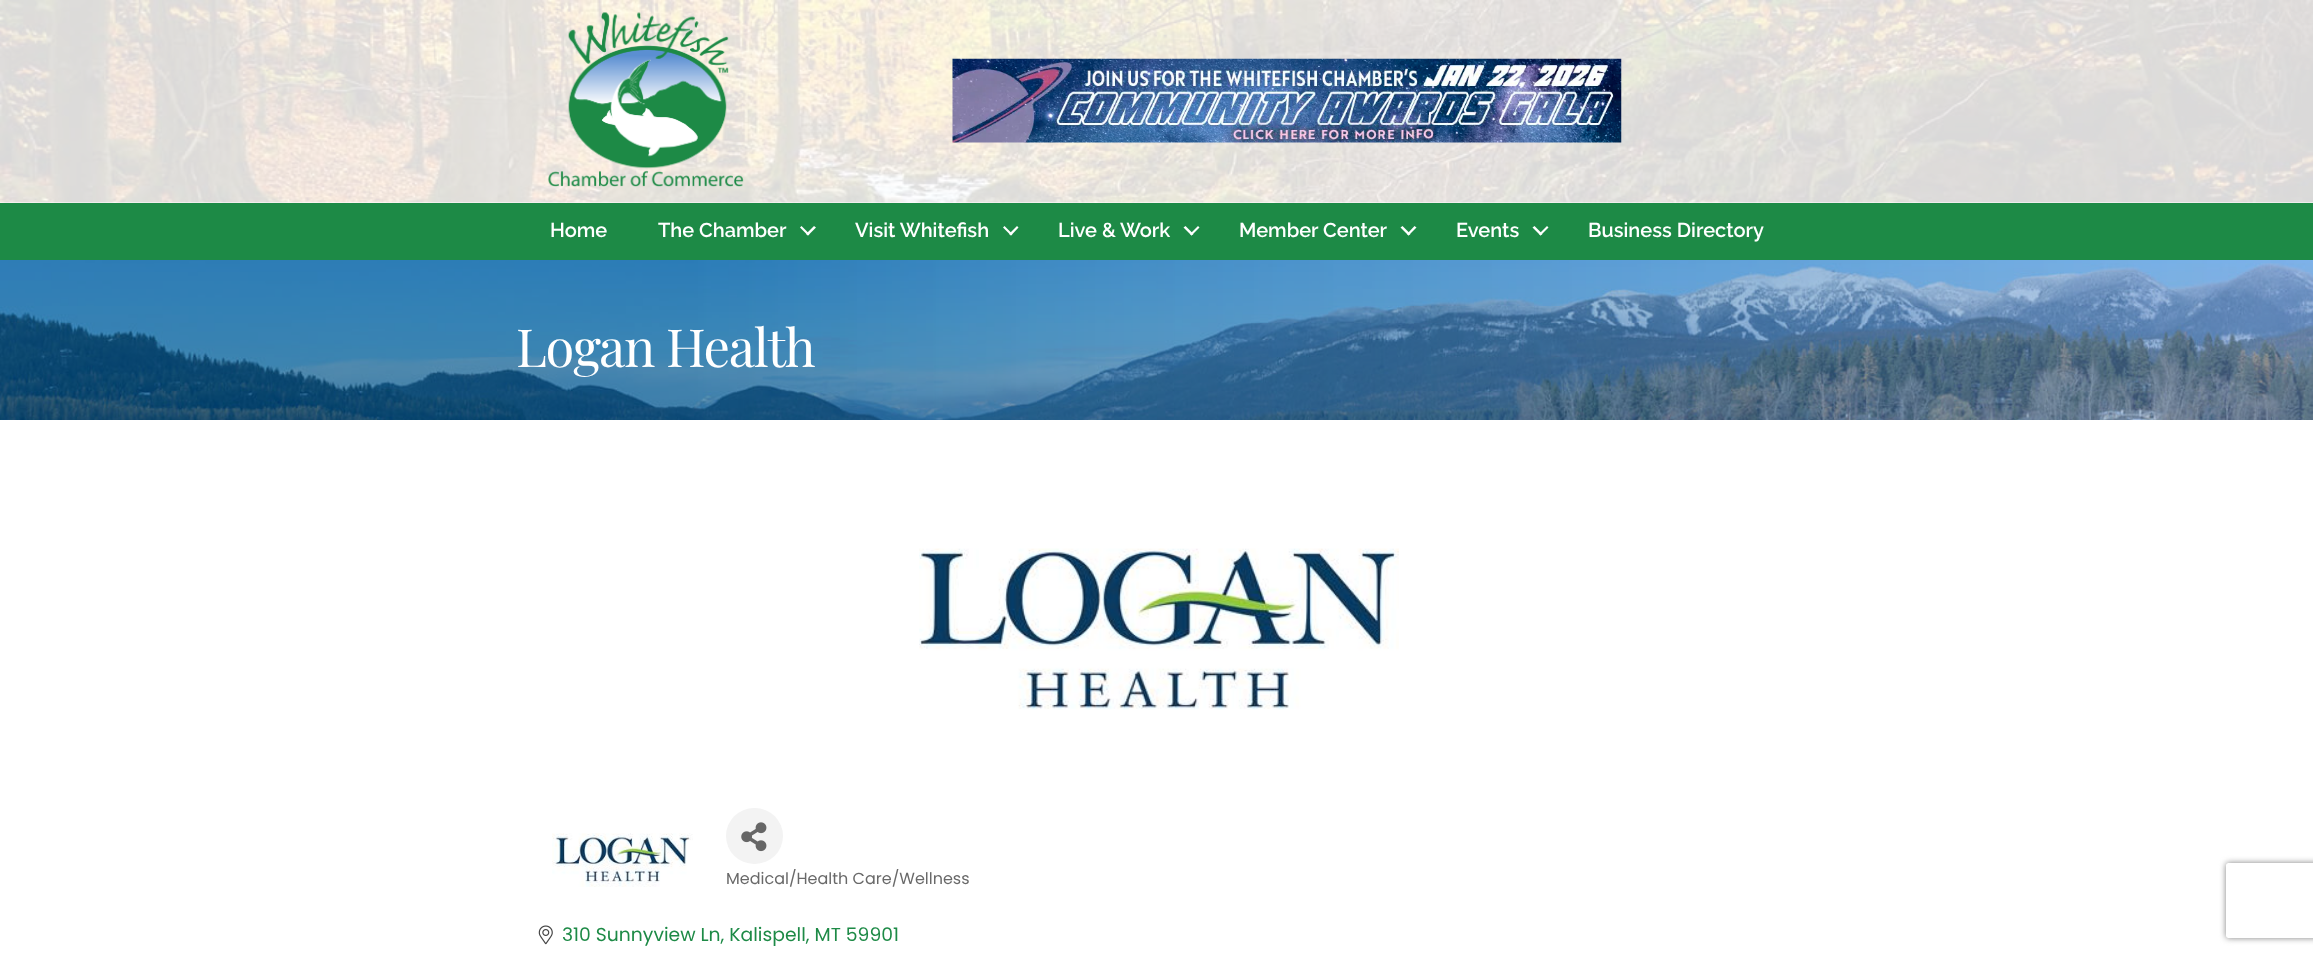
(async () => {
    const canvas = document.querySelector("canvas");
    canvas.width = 2313;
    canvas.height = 955;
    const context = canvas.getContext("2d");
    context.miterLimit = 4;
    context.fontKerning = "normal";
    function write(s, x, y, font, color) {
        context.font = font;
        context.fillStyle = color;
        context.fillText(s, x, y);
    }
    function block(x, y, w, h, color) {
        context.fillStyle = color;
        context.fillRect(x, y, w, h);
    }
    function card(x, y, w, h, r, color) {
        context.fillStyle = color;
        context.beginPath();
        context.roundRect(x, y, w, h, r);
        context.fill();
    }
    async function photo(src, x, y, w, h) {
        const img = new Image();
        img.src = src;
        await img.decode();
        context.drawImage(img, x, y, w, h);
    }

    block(0, 0, 2313, 955, "rgb(255, 255, 255)");
    await photo("media/1.png", 0, 0, 2313, 203);
    await photo("media/2.png", 548, 12, 196, 175);
    await photo("media/3.png", 952, 58, 670, 85);
    block(0, 203, 2313, 57, "rgb(29, 138, 70)");
    write("Home", 550, 237, "100 20px Raleway", "rgb(255, 255, 255)");
    write("The Chamber", 658, 237, "100 20px Raleway", "rgb(255, 255, 255)");
    context.beginPath();
    context.moveTo(814, 226);
    context.lineTo(816, 227.5);
    context.lineTo(808, 235.5);
    context.lineTo(806, 234);
    context.closePath();
    context.fill();
    context.beginPath();
    context.moveTo(801.5, 226);
    context.lineTo(809.5, 234);
    context.lineTo(808, 235.5);
    context.lineTo(800, 227.5);
    context.closePath();
    context.fill();
    write("Visit Whitefish", 855, 237, "100 20px Raleway", "rgb(255, 255, 255)");
    context.beginPath();
    context.moveTo(1017, 226);
    context.lineTo(1018.5, 227.5);
    context.lineTo(1011, 235.5);
    context.lineTo(1009, 234);
    context.closePath();
    context.fill();
    context.beginPath();
    context.moveTo(1004.5, 226);
    context.lineTo(1012.5, 234);
    context.lineTo(1011, 235.5);
    context.lineTo(1003, 227.5);
    context.closePath();
    context.fill();
    write("Live & Work", 1058, 237, "100 20px Raleway", "rgb(255, 255, 255)");
    context.beginPath();
    context.moveTo(1198, 226);
    context.lineTo(1199.5, 227.5);
    context.lineTo(1191.5, 235.5);
    context.lineTo(1190, 234);
    context.closePath();
    context.fill();
    context.beginPath();
    context.moveTo(1185.5, 226);
    context.lineTo(1193.5, 234);
    context.lineTo(1191.5, 235.5);
    context.lineTo(1183.5, 227.5);
    context.closePath();
    context.fill();
    write("Member Center", 1239, 237, "100 20px Raleway", "rgb(255, 255, 255)");
    context.beginPath();
    context.moveTo(1414.5, 226);
    context.lineTo(1416.5, 227.5);
    context.lineTo(1408.5, 235.5);
    context.lineTo(1407, 234);
    context.closePath();
    context.fill();
    context.beginPath();
    context.moveTo(1402.5, 226);
    context.lineTo(1410.5, 234);
    context.lineTo(1408.5, 235.5);
    context.lineTo(1400.5, 227.5);
    context.closePath();
    context.fill();
    write("Events", 1456, 237, "100 20px Raleway", "rgb(255, 255, 255)");
    context.beginPath();
    context.moveTo(1547, 226);
    context.lineTo(1548.5, 227.5);
    context.lineTo(1540.5, 235.5);
    context.lineTo(1539, 234);
    context.closePath();
    context.fill();
    context.beginPath();
    context.moveTo(1534.5, 226);
    context.lineTo(1542.5, 234);
    context.lineTo(1540.5, 235.5);
    context.lineTo(1532.5, 227.5);
    context.closePath();
    context.fill();
    write("Business Directory", 1588, 237, "100 20px Raleway", "rgb(255, 255, 255)");
    await photo("media/4.png", 0, 260, 2313, 160);
    context.letterSpacing = "-1.25px";
    write("Logan Health", 516, 367, "52.5px Playfair Display", "rgb(255, 255, 255)");
    await photo("media/5.png", 919, 548, 480, 162);
    await photo("media/6.png", 552, 833, 141, 54);
    card(726, 808, 57, 56, 28, "rgb(243, 243, 243)");
    await photo("media/7.png", 741, 822, 26, 30);
    context.letterSpacing = "0px";
    write("Medical/Health Care/Wellness", 726, 884, "16px Poppins", "rgb(105, 105, 105)");
    await photo("media/8.png", 538, 925, 15, 20);
    write("310 Sunnyview Ln, Kalispell, MT 59901", 562, 941, "18.75px Poppins", "rgb(29, 138, 70)");
    context.save();
    context.beginPath();
    context.moveTo(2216, 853);
    context.lineTo(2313, 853);
    context.lineTo(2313, 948);
    context.lineTo(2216, 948);
    context.closePath();
    context.moveTo(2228.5, 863);
    context.lineTo(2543.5, 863);
    context.bezierCurveTo(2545, 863, 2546, 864, 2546, 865.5);
    context.lineTo(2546, 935.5);
    context.bezierCurveTo(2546, 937, 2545, 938, 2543.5, 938);
    context.lineTo(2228.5, 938);
    context.bezierCurveTo(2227, 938, 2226, 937, 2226, 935.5);
    context.lineTo(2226, 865.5);
    context.bezierCurveTo(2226, 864, 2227, 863, 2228.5, 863);
    context.closePath();
    context.clip("evenodd");
    context.fillStyle = "rgb(128, 128, 128)";
    context.filter = "blur(3px)";
    context.beginPath();
    context.roundRect(2226, 863, 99, 75, 2.5);
    context.fill();
    context.filter = "none";
    context.restore();
})();
